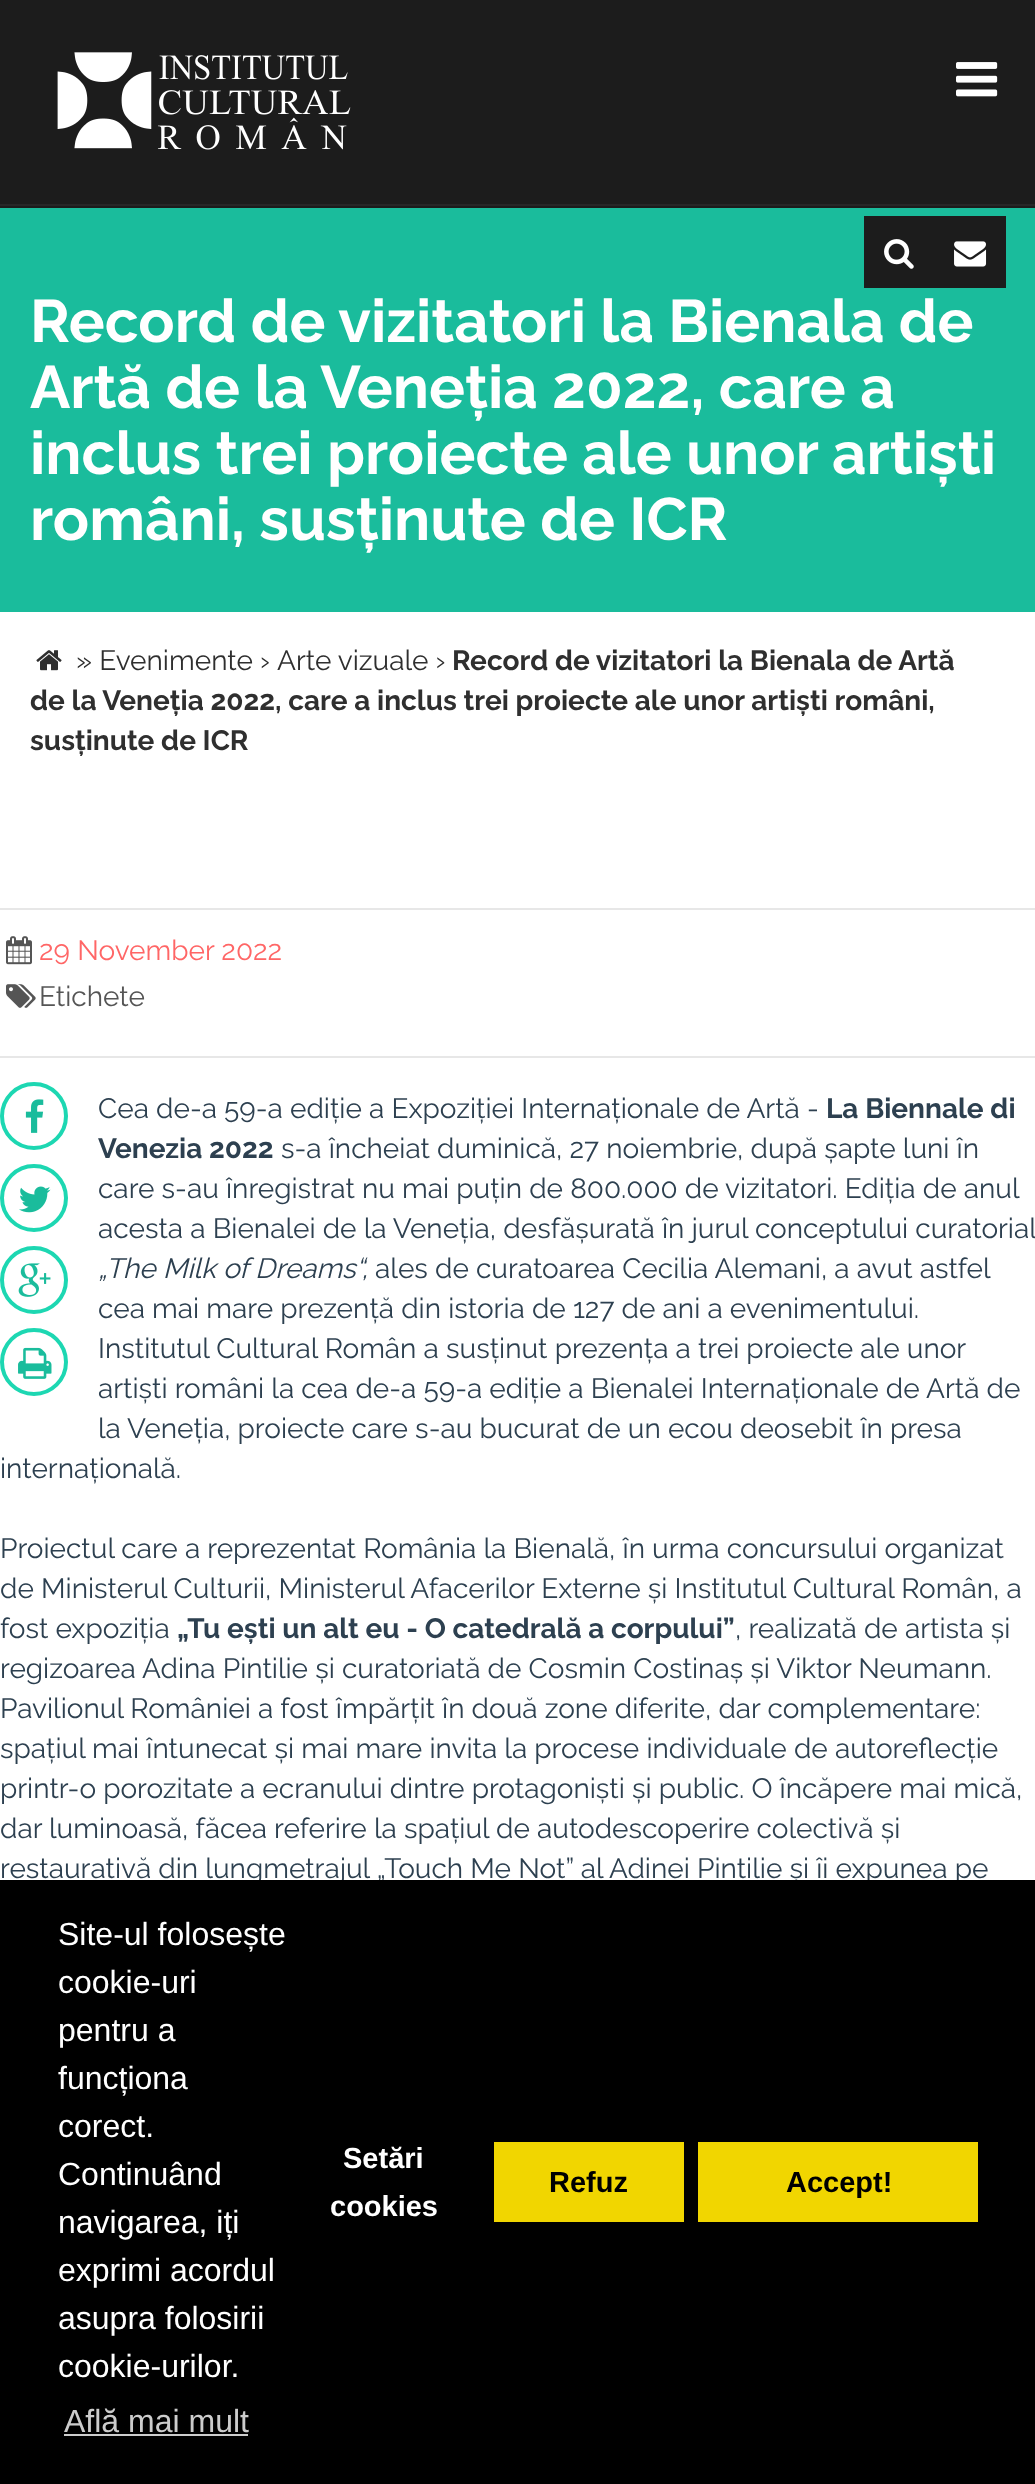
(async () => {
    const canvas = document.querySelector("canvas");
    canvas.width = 1035;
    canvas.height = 2484;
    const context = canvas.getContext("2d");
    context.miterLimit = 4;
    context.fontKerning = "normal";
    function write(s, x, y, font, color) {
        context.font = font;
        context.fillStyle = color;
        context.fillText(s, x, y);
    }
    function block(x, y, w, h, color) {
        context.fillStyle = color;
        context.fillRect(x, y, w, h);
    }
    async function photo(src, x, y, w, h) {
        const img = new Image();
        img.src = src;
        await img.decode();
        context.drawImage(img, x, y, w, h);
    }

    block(0, 0, 1035, 2484, "rgb(255, 255, 255)");
    block(0, 0, 1035, 204, "rgb(28, 28, 28)");
    block(0, 204, 1035, 2, "rgb(39, 39, 39)");
    await photo("media/1.png", 57, 52, 294, 98);
    block(0, 206, 1035, 2, "rgb(28, 28, 28)");
    await photo("media/2.png", 956, 62, 42, 35);
    block(0, 208, 1035, 404, "rgb(26, 188, 156)");
    block(864, 216, 142, 72, "rgb(28, 28, 28)");
    await photo("media/3.png", 884, 239, 30, 30);
    await photo("media/4.png", 954, 241, 33, 26);
    write("Record de vizitatori la Bienala de", 30, 342, "bold 60px Raleway", "rgb(255, 255, 255)");
    write("Artă de la Veneția 2022, care a", 30, 408, "bold 60px Raleway", "rgb(255, 255, 255)");
    write("inclus trei proiecte ale unor artiști", 30, 474, "bold 60px Raleway", "rgb(255, 255, 255)");
    write("români, susținute de ICR", 30, 540, "bold 60px Raleway", "rgb(255, 255, 255)");
    await photo("media/5.png", 36, 650, 26, 21);
    write("» Evenimente ›", 76, 670, "28px Raleway", "rgb(47, 47, 47)");
    write("Arte vizuale ›", 277, 670, "28px Raleway", "rgb(47, 47, 47)");
    write("Record de vizitatori la Bienala de Artă", 452, 670, "bold 28px Raleway", "rgb(47, 47, 47)");
    write("de la Veneția 2022, care a inclus trei proiecte ale unor artiști români,", 30, 710, "bold 28px Raleway", "rgb(47, 47, 47)");
    write("susținute de ICR", 30, 750, "bold 28px Raleway", "rgb(47, 47, 47)");
    block(0, 908, 1035, 2, "rgb(231, 231, 231)");
    block(0, 1056, 1035, 2, "rgb(231, 231, 231)");
    await photo("media/6.png", 6, 936, 26, 29);
    write("29 November 2022", 39, 960, "28px Raleway", "rgb(255, 102, 102)");
    await photo("media/7.png", 6, 984, 30, 24);
    write("Etichete", 39, 1006, "28px Raleway", "rgb(85, 85, 85)");
    context.beginPath();
    context.arc(34, 1116, 32, 0, Math.PI * 2);
    context.strokeStyle = "rgb(29, 215, 178)";
    context.lineWidth = 4;
    context.stroke();
    await photo("media/8.png", 25, 1099, 19, 34);
    context.beginPath();
    context.arc(34, 1198, 32, 0, Math.PI * 2);
    context.stroke();
    await photo("media/9.png", 19, 1186, 32, 27);
    context.beginPath();
    context.arc(34, 1280, 32, 0, Math.PI * 2);
    context.stroke();
    await photo("media/10.png", 18, 1263, 33, 34);
    context.beginPath();
    context.arc(34, 1362, 32, 0, Math.PI * 2);
    context.stroke();
    await photo("media/11.png", 18, 1347, 34, 32);
    write("Cea de-a 59-a ediție a Expoziției Internaționale de Artă -", 98, 1118, "28px Raleway", "rgb(45, 64, 80)");
    write("La Biennale di", 826, 1118, "bold 28px Raleway", "rgb(45, 64, 80)");
    write("Venezia 2022", 98, 1158, "bold 28px Raleway", "rgb(45, 64, 80)");
    write("s-a încheiat duminică, 27 noiembrie, după șapte luni în", 281, 1158, "28px Raleway", "rgb(45, 64, 80)");
    write("care s-au înregistrat nu mai puțin de 800.000 de vizitatori. Ediția de anul", 98, 1198, "28px Raleway", "rgb(45, 64, 80)");
    write("acesta a Bienalei de la Veneția, desfășurată în jurul conceptului curatorial", 98, 1238, "28px Raleway", "rgb(45, 64, 80)");
    write("„The Milk of Dreams“,", 98, 1278, "italic 28px Raleway", "rgb(45, 64, 80)");
    write("ales de curatoarea Cecilia Alemani, a avut astfel", 375, 1278, "28px Raleway", "rgb(45, 64, 80)");
    write("cea mai mare prezență din istoria de 127 de ani a evenimentului.", 98, 1318, "28px Raleway", "rgb(45, 64, 80)");
    write("Institutul Cultural Român a susținut prezența a trei proiecte ale unor", 98, 1358, "28px Raleway", "rgb(45, 64, 80)");
    write("artiști români la cea de-a 59-a ediție a Bienalei Internaționale de Artă de", 98, 1398, "28px Raleway", "rgb(45, 64, 80)");
    write("la Veneția, proiecte care s-au bucurat de un ecou deosebit în presa", 98, 1438, "28px Raleway", "rgb(45, 64, 80)");
    write("internațională.", 0, 1478, "28px Raleway", "rgb(45, 64, 80)");
    write("Proiectul care a reprezentat România la Bienală, în urma concursului organizat", 0, 1558, "28px Raleway", "rgb(45, 64, 80)");
    write("de Ministerul Culturii, Ministerul Afacerilor Externe și Institutul Cultural Român, a", 0, 1598, "28px Raleway", "rgb(45, 64, 80)");
    write("fost expoziția", 0, 1638, "28px Raleway", "rgb(45, 64, 80)");
    write("„Tu ești un alt eu - O catedrală a corpului”", 177, 1638, "bold 28px Raleway", "rgb(45, 64, 80)");
    write(", realizată de artista și", 735, 1638, "28px Raleway", "rgb(45, 64, 80)");
    write("regizoarea Adina Pintilie și curatoriată de Cosmin Costinaș și Viktor Neumann.", 0, 1678, "28px Raleway", "rgb(45, 64, 80)");
    write("Pavilionul României a fost împărțit în două zone diferite, dar complementare:", 0, 1718, "28px Raleway", "rgb(45, 64, 80)");
    write("spațiul mai întunecat și mai mare invita la procese individuale de autoreflecție", 0, 1758, "28px Raleway", "rgb(45, 64, 80)");
    write("printr-o porozitate a ecranului dintre protagoniști și public. O încăpere mai mică,", 0, 1798, "28px Raleway", "rgb(45, 64, 80)");
    write("dar luminoasă, făcea referire la spațiul de autodescoperire colectivă și", 0, 1838, "28px Raleway", "rgb(45, 64, 80)");
    write("restaurativă din lungmetrajul „Touch Me Not” al Adinei Pintilie și îi expunea pe", 0, 1878, "28px Raleway", "rgb(45, 64, 80)");
    block(0, 1880, 1035, 604, "rgb(0, 0, 0)");
    write("Site-ul folosește", 58, 1945, "32px Liberation Sans", "rgb(255, 255, 255)");
    write("cookie-uri", 58, 1993, "32px Liberation Sans", "rgb(255, 255, 255)");
    write("pentru a", 58, 2041, "32px Liberation Sans", "rgb(255, 255, 255)");
    write("funcționa", 58, 2089, "32px Liberation Sans", "rgb(255, 255, 255)");
    write("corect.", 58, 2137, "32px Liberation Sans", "rgb(255, 255, 255)");
    write("Continuând", 58, 2185, "32px Liberation Sans", "rgb(255, 255, 255)");
    write("navigarea, iți", 58, 2233, "32px Liberation Sans", "rgb(255, 255, 255)");
    write("exprimi acordul", 58, 2281, "32px Liberation Sans", "rgb(255, 255, 255)");
    write("asupra folosirii", 58, 2329, "32px Liberation Sans", "rgb(255, 255, 255)");
    write("cookie-urilor.", 58, 2377, "32px Liberation Sans", "rgb(255, 255, 255)");
    write("Află mai mult", 64, 2432, "32px Liberation Sans", "rgb(204, 204, 204)");
    block(64, 2434, 184, 2, "rgb(204, 204, 204)");
    write("Setări", 343, 2168, "bold 29px Liberation Sans", "rgb(255, 255, 255)");
    write("cookies", 330, 2216, "bold 29px Liberation Sans", "rgb(255, 255, 255)");
    block(494, 2142, 190, 80, "rgb(241, 214, 0)");
    write("Refuz", 549, 2192, "bold 29px Liberation Sans", "rgb(0, 0, 0)");
    block(698, 2142, 280, 80, "rgb(241, 214, 0)");
    write("Accept!", 786, 2192, "bold 29px Liberation Sans", "rgb(0, 0, 0)");
})();
